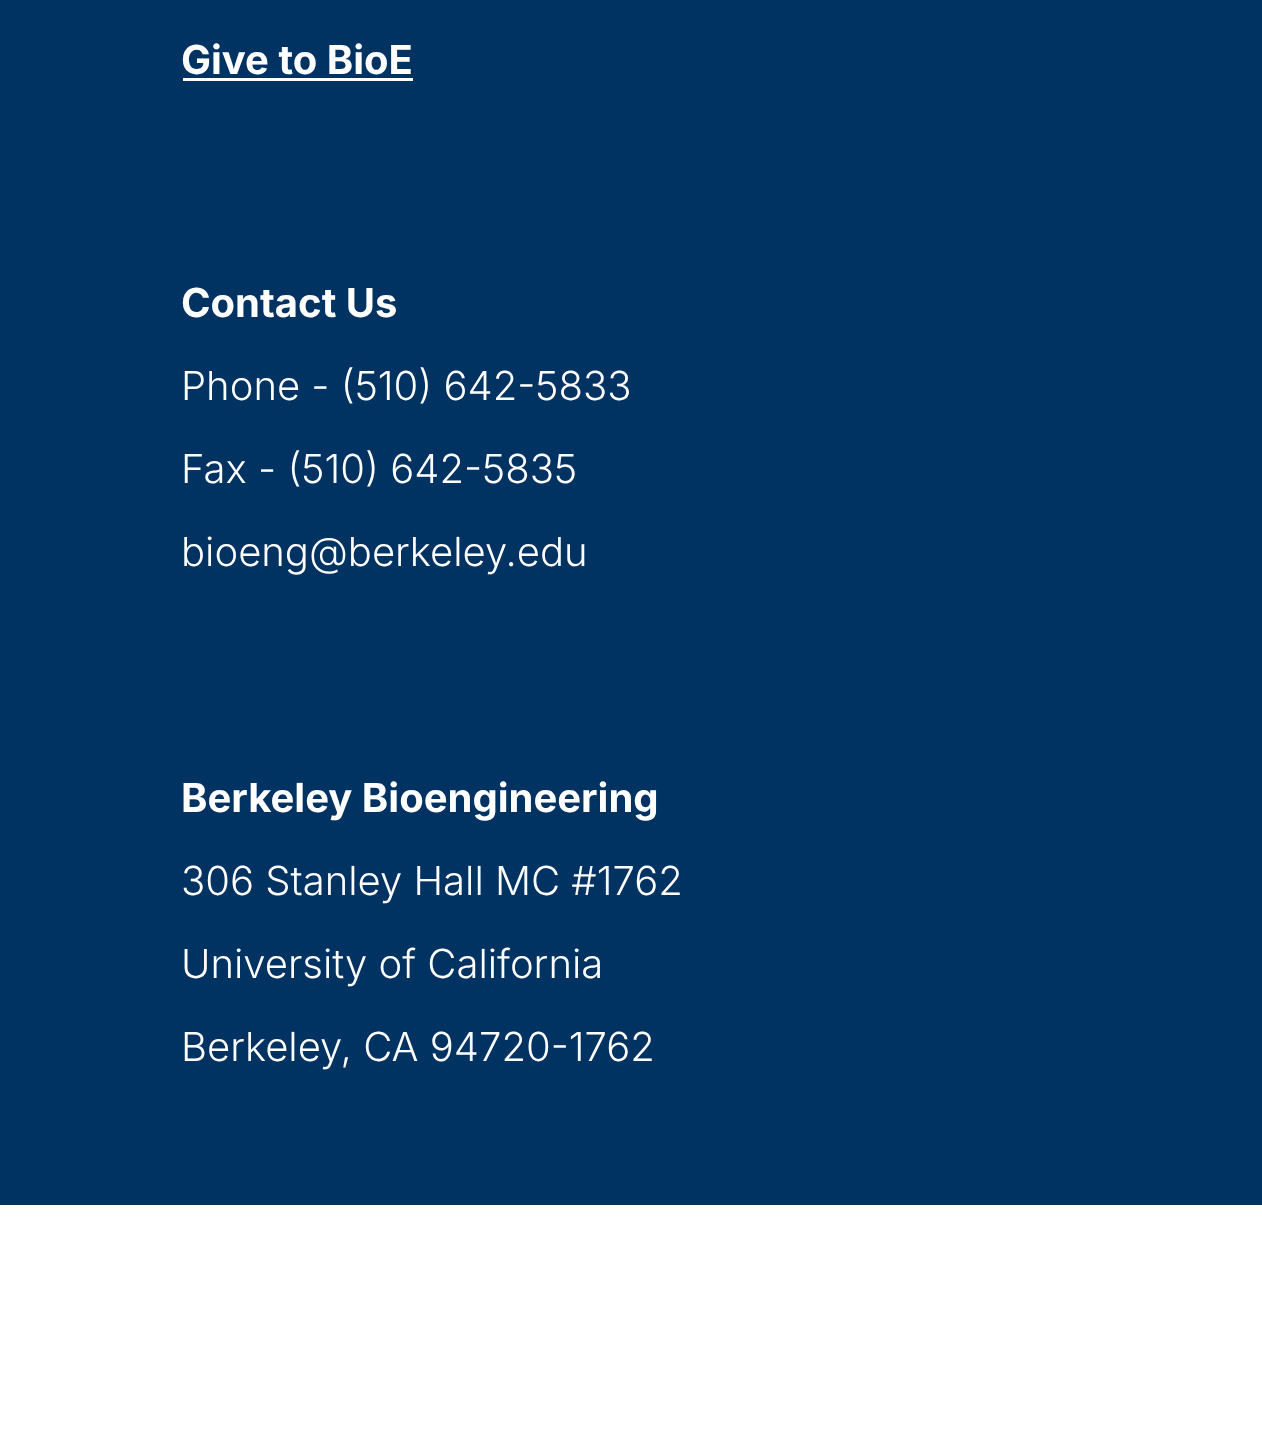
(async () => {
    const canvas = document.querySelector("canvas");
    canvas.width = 1262;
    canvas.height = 1454;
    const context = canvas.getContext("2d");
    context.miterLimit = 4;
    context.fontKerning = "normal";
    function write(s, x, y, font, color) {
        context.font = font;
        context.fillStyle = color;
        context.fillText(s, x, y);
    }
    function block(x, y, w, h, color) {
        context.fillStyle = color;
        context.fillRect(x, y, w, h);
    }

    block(0, 0, 1262, 1454, "rgb(255, 255, 255)");
    block(0, 0, 1262, 1205, "rgb(0, 50, 98)");
    write("Give to BioE", 181, 74, "bold 40px Inter", "rgb(255, 255, 255)");
    block(183, 78, 230, 3, "rgb(255, 255, 255)");
    write("Contact Us", 181, 317, "bold 40px Inter", "rgb(255, 255, 255)");
    write("Phone - (510) 642-5833", 181, 400, "300 40px Inter", "rgb(255, 255, 255)");
    write("Fax - (510) 642-5835", 181, 483, "300 40px Inter", "rgb(255, 255, 255)");
    write("bioeng@berkeley.edu", 181, 566, "300 40px Inter", "rgb(255, 255, 255)");
    write("Berkeley Bioengineering", 181, 812, "bold 40px Inter", "rgb(255, 255, 255)");
    write("306 Stanley Hall MC #1762", 181, 895, "300 40px Inter", "rgb(255, 255, 255)");
    write("University of California", 181, 978, "300 40px Inter", "rgb(255, 255, 255)");
    write("Berkeley, CA 94720-1762", 181, 1061, "300 40px Inter", "rgb(255, 255, 255)");
})();
